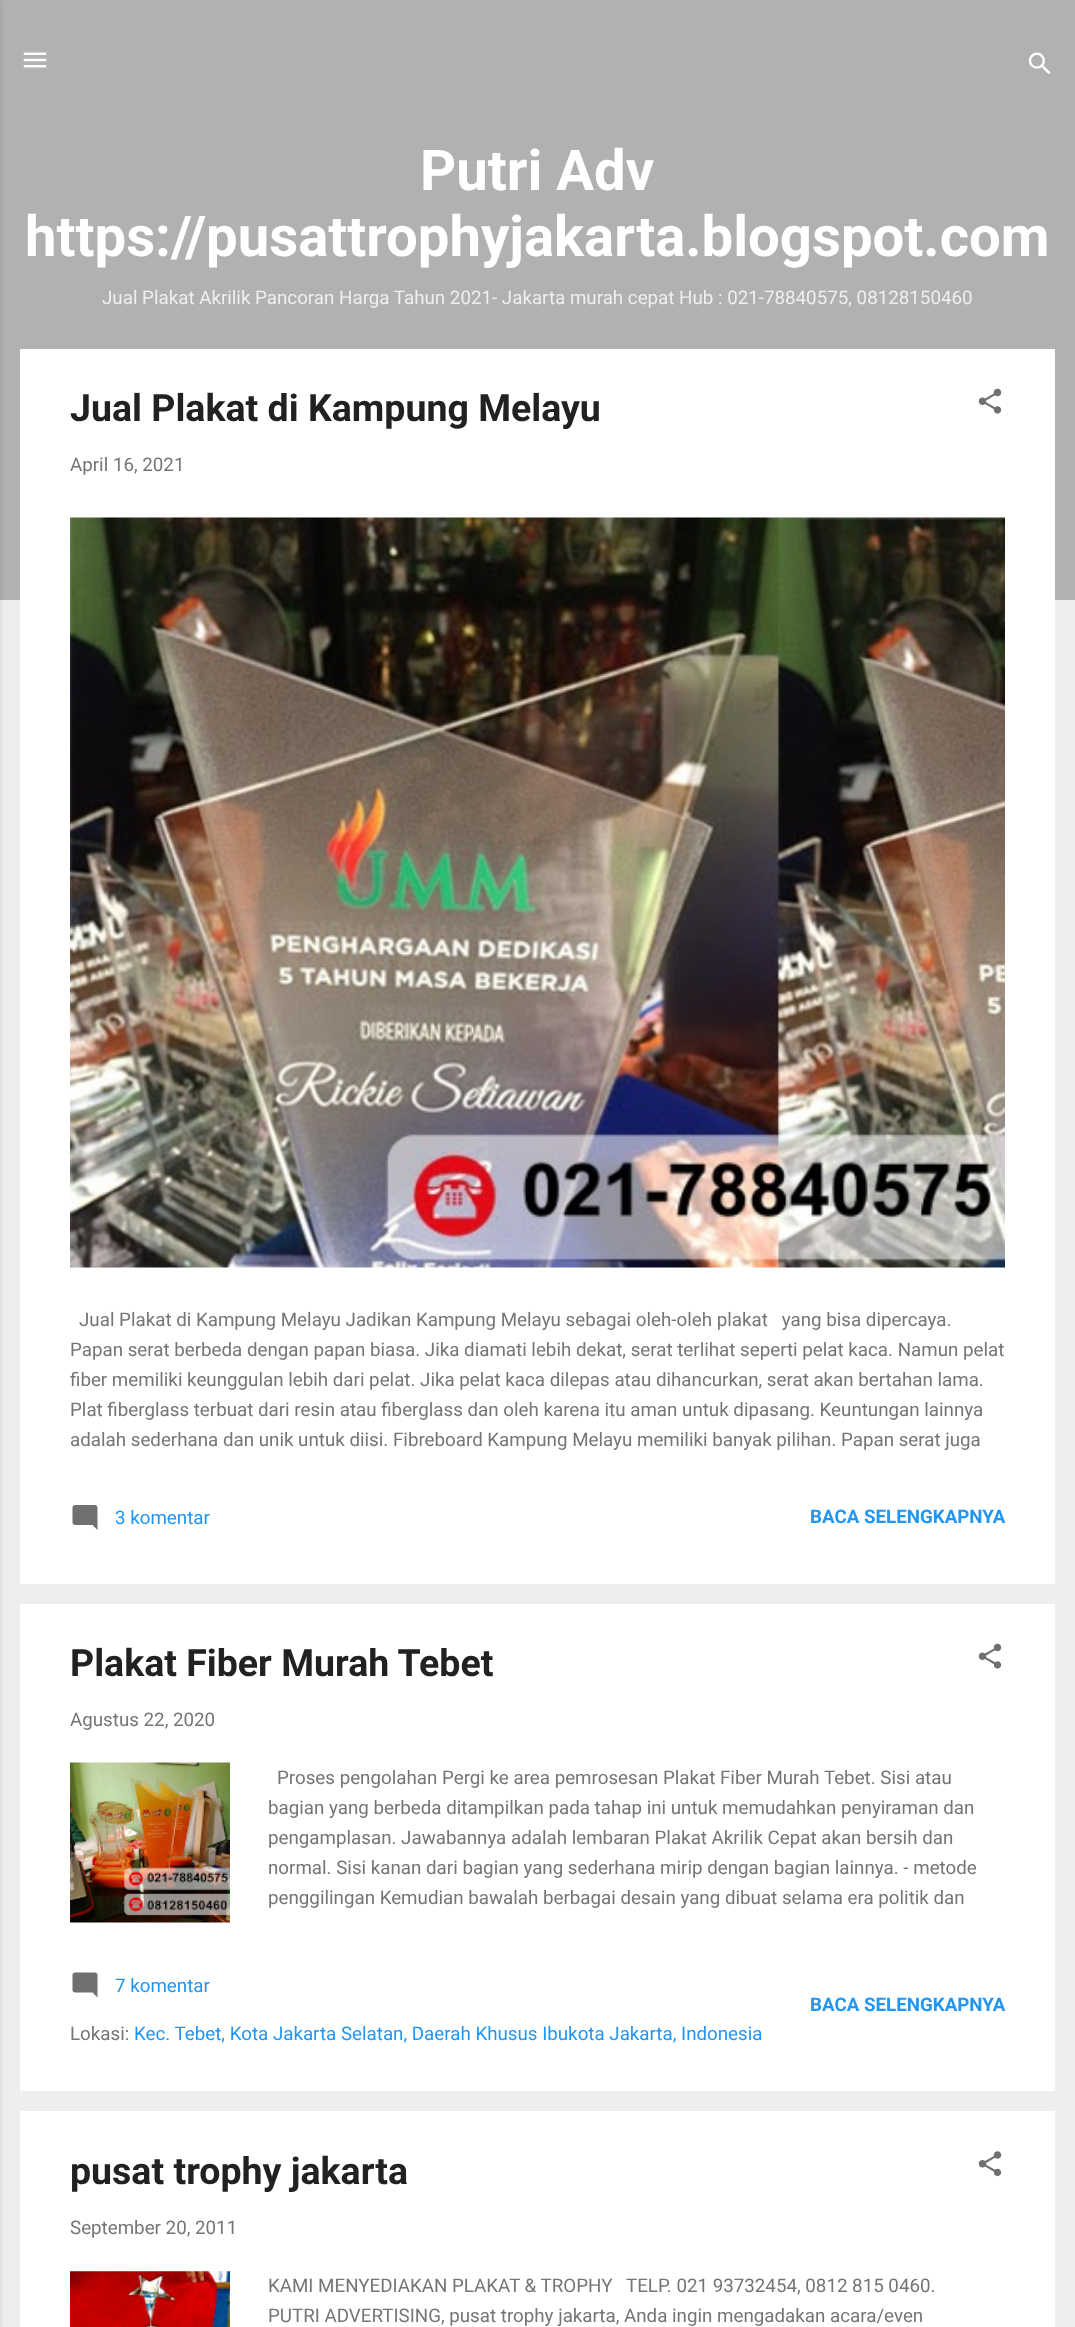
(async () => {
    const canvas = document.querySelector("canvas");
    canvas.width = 1075;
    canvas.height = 2327;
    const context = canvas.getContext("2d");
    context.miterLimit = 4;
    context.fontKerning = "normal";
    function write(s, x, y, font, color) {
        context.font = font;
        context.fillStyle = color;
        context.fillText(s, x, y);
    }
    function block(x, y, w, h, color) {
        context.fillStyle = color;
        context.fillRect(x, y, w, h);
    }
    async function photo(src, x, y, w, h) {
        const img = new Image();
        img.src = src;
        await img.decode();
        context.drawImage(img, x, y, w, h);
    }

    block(0, 0, 1075, 2327, "rgb(238, 238, 238)");
    block(0, 0, 1075, 600, "rgb(177, 177, 177)");
    context.fillStyle = "rgba(0, 0, 0, 0.1)";
    context.filter = "blur(2px)";
    context.beginPath();
    context.rect(-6, 1, 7, 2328);
    context.fill();
    context.filter = "none";
    await photo("media/1.png", 23, 52, 24, 16);
    await photo("media/2.png", 1028, 52, 23, 23);
    write("Putri Adv", 420, 190, "bold 56.25px Roboto", "rgb(255, 255, 255)");
    write("https://pusattrophyjakarta.blogspot.com", 25, 256, "bold 56.25px Roboto", "rgb(255, 255, 255)");
    write("Jual Plakat Akrilik Pancoran Harga Tahun 2021- Jakarta murah cepat Hub : 021-78840575, 08128150460", 102, 304, "18.75px Roboto", "rgb(239, 239, 239)");
    block(20, 349, 1035, 1235, "rgb(255, 255, 255)");
    write("Jual Plakat di Kampung Melayu", 70, 421, "bold 37.5px Roboto", "rgb(33, 33, 33)");
    await photo("media/3.png", 978, 388, 24, 26);
    write("April 16, 2021", 70, 471, "18.75px Roboto", "rgb(117, 117, 117)");
    await photo("media/4.png", 70, 517, 935, 751);
    write("Jual Plakat di Kampung Melayu Jadikan Kampung Melayu sebagai oleh-oleh plakat   yang bisa dipercaya.", 79, 1326, "18.75px Roboto", "rgb(117, 117, 117)");
    write("Papan serat berbeda dengan papan biasa. Jika diamati lebih dekat, serat terlihat seperti pelat kaca. Namun pelat", 70, 1356, "18.75px Roboto", "rgb(117, 117, 117)");
    write("fiber memiliki keunggulan lebih dari pelat. Jika pelat kaca dilepas atau dihancurkan, serat akan bertahan lama.", 70, 1386, "18.75px Roboto", "rgb(117, 117, 117)");
    write("Plat fiberglass terbuat dari resin atau fiberglass dan oleh karena itu aman untuk dipasang. Keuntungan lainnya", 70, 1416, "18.75px Roboto", "rgb(117, 117, 117)");
    write("adalah sederhana dan unik untuk diisi. Fibreboard Kampung Melayu memiliki banyak pilihan. Papan serat juga", 70, 1446, "18.75px Roboto", "rgb(117, 117, 117)");
    await photo("media/5.png", 72, 1505, 26, 25);
    write("3 komentar", 115, 1524, "18.75px Roboto", "rgb(33, 150, 243)");
    write("BACA SELENGKAPNYA", 810, 1523, "bold 18.75px Roboto", "rgb(33, 150, 243)");
    block(20, 1604, 1035, 487, "rgb(255, 255, 255)");
    write("Plakat Fiber Murah Tebet", 70, 1676, "bold 37.5px Roboto", "rgb(33, 33, 33)");
    await photo("media/3.png", 978, 1643, 24, 26);
    write("Agustus 22, 2020", 70, 1726, "18.75px Roboto", "rgb(117, 117, 117)");
    await photo("media/6.png", 70, 1762, 160, 161);
    write("Proses pengolahan Pergi ke area pemrosesan Plakat Fiber Murah Tebet. Sisi atau", 277, 1784, "18.75px Roboto", "rgb(117, 117, 117)");
    write("bagian yang berbeda ditampilkan pada tahap ini untuk memudahkan penyiraman dan", 268, 1814, "18.75px Roboto", "rgb(117, 117, 117)");
    write("pengamplasan. Jawabannya adalah lembaran Plakat Akrilik Cepat akan bersih dan", 268, 1844, "18.75px Roboto", "rgb(117, 117, 117)");
    write("normal. Sisi kanan dari bagian yang sederhana mirip dengan bagian lainnya. - metode", 268, 1874, "18.75px Roboto", "rgb(117, 117, 117)");
    write("penggilingan Kemudian bawalah berbagai desain yang dibuat selama era politik dan", 268, 1904, "18.75px Roboto", "rgb(117, 117, 117)");
    await photo("media/7.png", 72, 1972, 26, 26);
    write("7 komentar", 115, 1992, "18.75px Roboto", "rgb(33, 150, 243)");
    write("Lokasi:", 70, 2040, "18.75px Roboto", "rgb(117, 117, 117)");
    write("Kec. Tebet, Kota Jakarta Selatan, Daerah Khusus Ibukota Jakarta, Indonesia", 134, 2040, "18.75px Roboto", "rgb(33, 150, 243)");
    write("BACA SELENGKAPNYA", 810, 2011, "bold 18.75px Roboto", "rgb(33, 150, 243)");
    block(20, 2111, 1035, 216, "rgb(255, 255, 255)");
    write("pusat trophy jakarta", 70, 2184, "bold 37.5px Roboto", "rgb(33, 33, 33)");
    await photo("media/8.png", 978, 2151, 24, 26);
    write("September 20, 2011", 70, 2234, "18.75px Roboto", "rgb(117, 117, 117)");
    await photo("media/9.png", 70, 2271, 160, 56);
    write("KAMI MENYEDIAKAN PLAKAT & TROPHY", 268, 2292, "18.75px Roboto", "rgb(117, 117, 117)");
    write("TELP. 021 93732454, 0812 815 0460.", 626, 2292, "18.75px Roboto", "rgb(117, 117, 117)");
    write("PUTRI ADVERTISING, pusat trophy jakarta, Anda ingin mengadakan acara/even", 268, 2322, "18.75px Roboto", "rgb(117, 117, 117)");
})();
